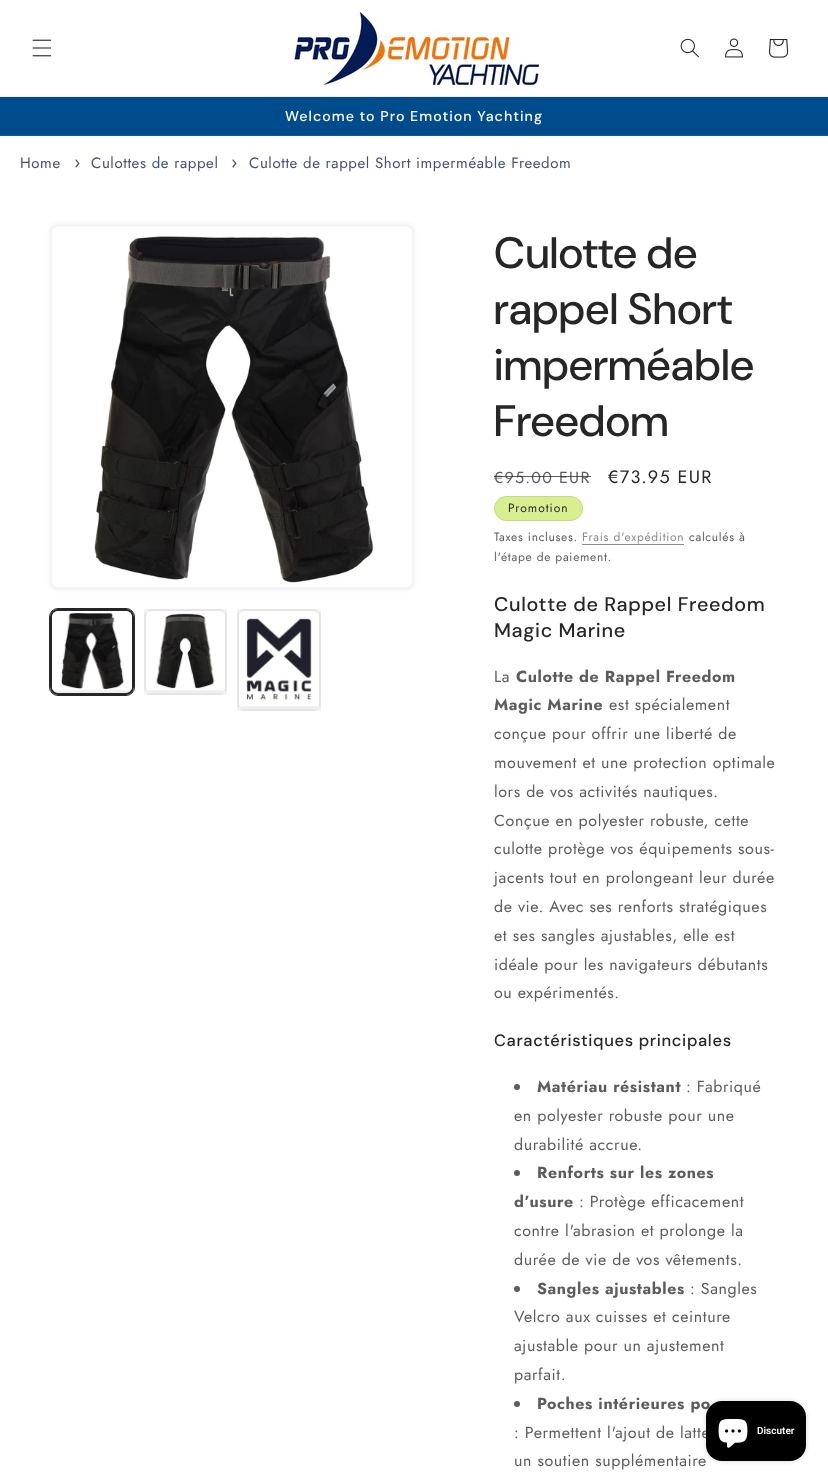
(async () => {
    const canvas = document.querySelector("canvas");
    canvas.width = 828;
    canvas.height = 1482;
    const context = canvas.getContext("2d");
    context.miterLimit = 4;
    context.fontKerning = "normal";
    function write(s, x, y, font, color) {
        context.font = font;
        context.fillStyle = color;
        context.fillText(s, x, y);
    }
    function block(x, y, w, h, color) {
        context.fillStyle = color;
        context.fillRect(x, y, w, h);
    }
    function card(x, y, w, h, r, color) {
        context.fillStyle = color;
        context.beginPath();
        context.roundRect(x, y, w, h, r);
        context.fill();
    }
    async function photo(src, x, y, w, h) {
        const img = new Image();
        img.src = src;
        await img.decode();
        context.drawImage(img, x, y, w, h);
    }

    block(0, 0, 828, 1482, "rgb(255, 255, 255)");
    block(0, 96, 828, 1, "rgb(238, 238, 238)");
    await photo("media/1.png", 32, 39, 20, 18);
    await photo("media/2.png", 292, 12, 247, 73);
    await photo("media/3.png", 680, 38, 19, 20);
    await photo("media/4.png", 725, 38, 18, 20);
    await photo("media/5.png", 769, 39, 20, 19);
    block(0, 97, 828, 38, "rgb(0, 75, 139)");
    block(0, 135, 828, 1, "rgb(20, 89, 148)");
    context.letterSpacing = "1px";
    write("Welcome to Pro Emotion Yachting", 285, 121, "500 14.25px DM Sans", "rgb(253, 253, 253)");
    context.letterSpacing = "0.6px";
    write("Home", 20, 168, "15px Jost", "rgb(70, 80, 118)");
    write("›", 74, 168, "18px Jost", "rgb(70, 80, 118)");
    write("Culottes de rappel", 91, 168, "15px Jost", "rgb(70, 80, 118)");
    write("›", 231, 168, "18px Jost", "rgb(70, 80, 118)");
    write("Culotte de rappel Short imperméable Freedom", 249, 168, "15px Jost", "rgb(70, 80, 118)");
    context.fillStyle = "rgba(0, 17, 40, 0.1)";
    context.filter = "blur(2.5px)";
    context.beginPath();
    context.roundRect(50, 225, 364, 364, 8);
    context.fill();
    context.filter = "none";
    context.fillStyle = "rgb(255, 255, 255)";
    context.beginPath();
    context.roundRect(51, 226, 362, 362, 7);
    context.fill();
    context.strokeStyle = "rgb(244, 244, 244)";
    context.lineWidth = 2;
    context.stroke();
    await photo("media/6.png", 94, 236, 280, 348);
    context.beginPath();
    context.roundRect(49.5, 608.5, 85, 87, 8.5);
    context.strokeStyle = "rgb(38, 38, 38)";
    context.lineWidth = 1;
    context.stroke();
    context.fillStyle = "rgb(240, 240, 240)";
    context.beginPath();
    context.roundRect(51, 610, 82, 84, 7);
    context.fill();
    context.lineWidth = 2;
    context.stroke();
    await photo("media/7.png", 52, 611, 80, 79);
    card(144, 609, 83, 86, 8, "rgb(240, 240, 240)");
    context.strokeStyle = "rgba(38, 38, 38, 0.05)";
    context.strokeRect(145, 610, 81, 84);
    await photo("media/8.png", 146, 611, 79, 79);
    card(237, 609, 84, 102, 8, "rgb(240, 240, 240)");
    context.strokeRect(238, 610, 82, 100);
    await photo("media/9.png", 239, 611, 80, 95);
    context.letterSpacing = "0.65px";
    write("Culotte de", 494, 268, "500 44px 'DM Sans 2'", "rgb(38, 38, 38)");
    write("rappel Short", 494, 324, "500 44px 'DM Sans 2'", "rgb(38, 38, 38)");
    write("imperméable", 494, 380, "500 44px 'DM Sans 2'", "rgb(38, 38, 38)");
    write("Freedom", 494, 436, "500 44px 'DM Sans 2'", "rgb(38, 38, 38)");
    context.letterSpacing = "1.25px";
    write("€95.00 EUR", 494, 483, "16px Jost", "rgb(92, 92, 92)");
    block(494, 476, 97, 1, "rgba(38, 38, 38, 0.75)");
    write("€73.95 EUR", 608, 483, "18px Jost", "rgb(38, 38, 38)");
    card(494, 496, 89, 25, 12.5, "rgb(216, 239, 145)");
    context.beginPath();
    context.roundRect(494.5, 496.5, 88, 24, 12);
    context.strokeStyle = "rgba(38, 38, 38, 0.1)";
    context.lineWidth = 1;
    context.stroke();
    context.letterSpacing = "1px";
    write("Promotion", 508, 512, "12px Jost", "rgb(38, 38, 38)");
    context.letterSpacing = "0.7px";
    write("Taxes incluses.", 494, 541, "12px Jost", "rgb(92, 92, 92)");
    write("Frais d'expédition", 582, 541, "12px Jost", "rgb(141, 138, 135)");
    block(582, 544, 102, 1, "rgb(141, 138, 135)");
    write("calculés à", 689, 541, "12px Jost", "rgb(92, 92, 92)");
    write("l'étape de paiement.", 494, 561, "12px Jost", "rgb(92, 92, 92)");
    context.letterSpacing = "0.65px";
    write("Culotte de Rappel Freedom", 494, 611, "500 19.75px 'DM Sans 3'", "rgb(38, 38, 38)");
    write("Magic Marine", 494, 637, "500 19.75px 'DM Sans 3'", "rgb(38, 38, 38)");
    context.letterSpacing = "0.6px";
    write("La", 494, 682, "16px Jost", "rgb(92, 92, 92)");
    write("Culotte de Rappel Freedom", 516, 682, "bold 16px Jost", "rgb(92, 92, 92)");
    write("Magic Marine", 494, 710, "bold 16px Jost", "rgb(92, 92, 92)");
    write("est spécialement", 609, 710, "16px Jost", "rgb(92, 92, 92)");
    write("conçue pour offrir une liberté de", 494, 739, "16px Jost", "rgb(92, 92, 92)");
    write("mouvement et une protection optimale", 494, 768, "16px Jost", "rgb(92, 92, 92)");
    write("lors de vos activités nautiques.", 494, 797, "16px Jost", "rgb(92, 92, 92)");
    write("Conçue en polyester robuste, cette", 494, 826, "16px Jost", "rgb(92, 92, 92)");
    write("culotte protège vos équipements sous-", 494, 854, "16px Jost", "rgb(92, 92, 92)");
    write("jacents tout en prolongeant leur durée", 494, 883, "16px Jost", "rgb(92, 92, 92)");
    write("de vie. Avec ses renforts stratégiques", 494, 912, "16px Jost", "rgb(92, 92, 92)");
    write("et ses sangles ajustables, elle est", 494, 941, "16px Jost", "rgb(92, 92, 92)");
    write("idéale pour les navigateurs débutants", 494, 970, "16px Jost", "rgb(92, 92, 92)");
    write("ou expérimentés.", 494, 998, "16px Jost", "rgb(92, 92, 92)");
    context.letterSpacing = "0.65px";
    write("Caractéristiques principales", 494, 1046, "500 16.5px 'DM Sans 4'", "rgb(38, 38, 38)");
    context.fillStyle = "rgb(92, 92, 92)";
    context.beginPath();
    context.arc(517, 1087, 3, 0, Math.PI * 2);
    context.fill();
    context.letterSpacing = "0.6px";
    write("Matériau résistant", 537, 1092, "bold 16px Jost", "rgb(92, 92, 92)");
    write(": Fabriqué", 686, 1092, "16px Jost", "rgb(92, 92, 92)");
    write("en polyester robuste pour une", 514, 1121, "16px Jost", "rgb(92, 92, 92)");
    write("durabilité accrue.", 514, 1150, "16px Jost", "rgb(92, 92, 92)");
    context.beginPath();
    context.arc(517, 1173, 3, 0, Math.PI * 2);
    context.fill();
    write("Renforts sur les zones", 537, 1178, "bold 16px Jost", "rgb(92, 92, 92)");
    write("d’usure", 514, 1207, "bold 16px Jost", "rgb(92, 92, 92)");
    write(": Protège efficacement", 579, 1207, "16px Jost", "rgb(92, 92, 92)");
    write("contre l'abrasion et prolonge la", 514, 1236, "16px Jost", "rgb(92, 92, 92)");
    write("durée de vie de vos vêtements.", 514, 1265, "16px Jost", "rgb(92, 92, 92)");
    context.beginPath();
    context.arc(517, 1289, 3, 0, Math.PI * 2);
    context.fill();
    write("Sangles ajustables", 537, 1294, "bold 16px Jost", "rgb(92, 92, 92)");
    write(": Sangles", 690, 1294, "16px Jost", "rgb(92, 92, 92)");
    write("Velcro aux cuisses et ceinture", 514, 1322, "16px Jost", "rgb(92, 92, 92)");
    write("ajustable pour un ajustement", 514, 1351, "16px Jost", "rgb(92, 92, 92)");
    write("parfait.", 514, 1380, "16px Jost", "rgb(92, 92, 92)");
    context.beginPath();
    context.arc(517, 1404, 3, 0, Math.PI * 2);
    context.fill();
    write("Poches intérieures po", 537, 1409, "bold 16px Jost", "rgb(92, 92, 92)");
    write(": Permettent l'ajout de latte", 514, 1438, "16px Jost", "rgb(92, 92, 92)");
    write("un soutien supplémentaire", 514, 1466, "16px Jost", "rgb(92, 92, 92)");
    context.fillStyle = "rgba(0, 0, 0, 0.15)";
    context.filter = "blur(2.5px)";
    context.beginPath();
    context.roundRect(706, 1401, 100, 60, 16);
    context.fill();
    context.filter = "none";
    card(706, 1401, 100, 60, 16, "rgb(0, 0, 0)");
    await photo("media/10.png", 718, 1419, 30, 29);
    context.letterSpacing = "0px";
    write("Discuter", 757, 1434, "600 10px Roboto", "rgb(253, 253, 253)");
})();
